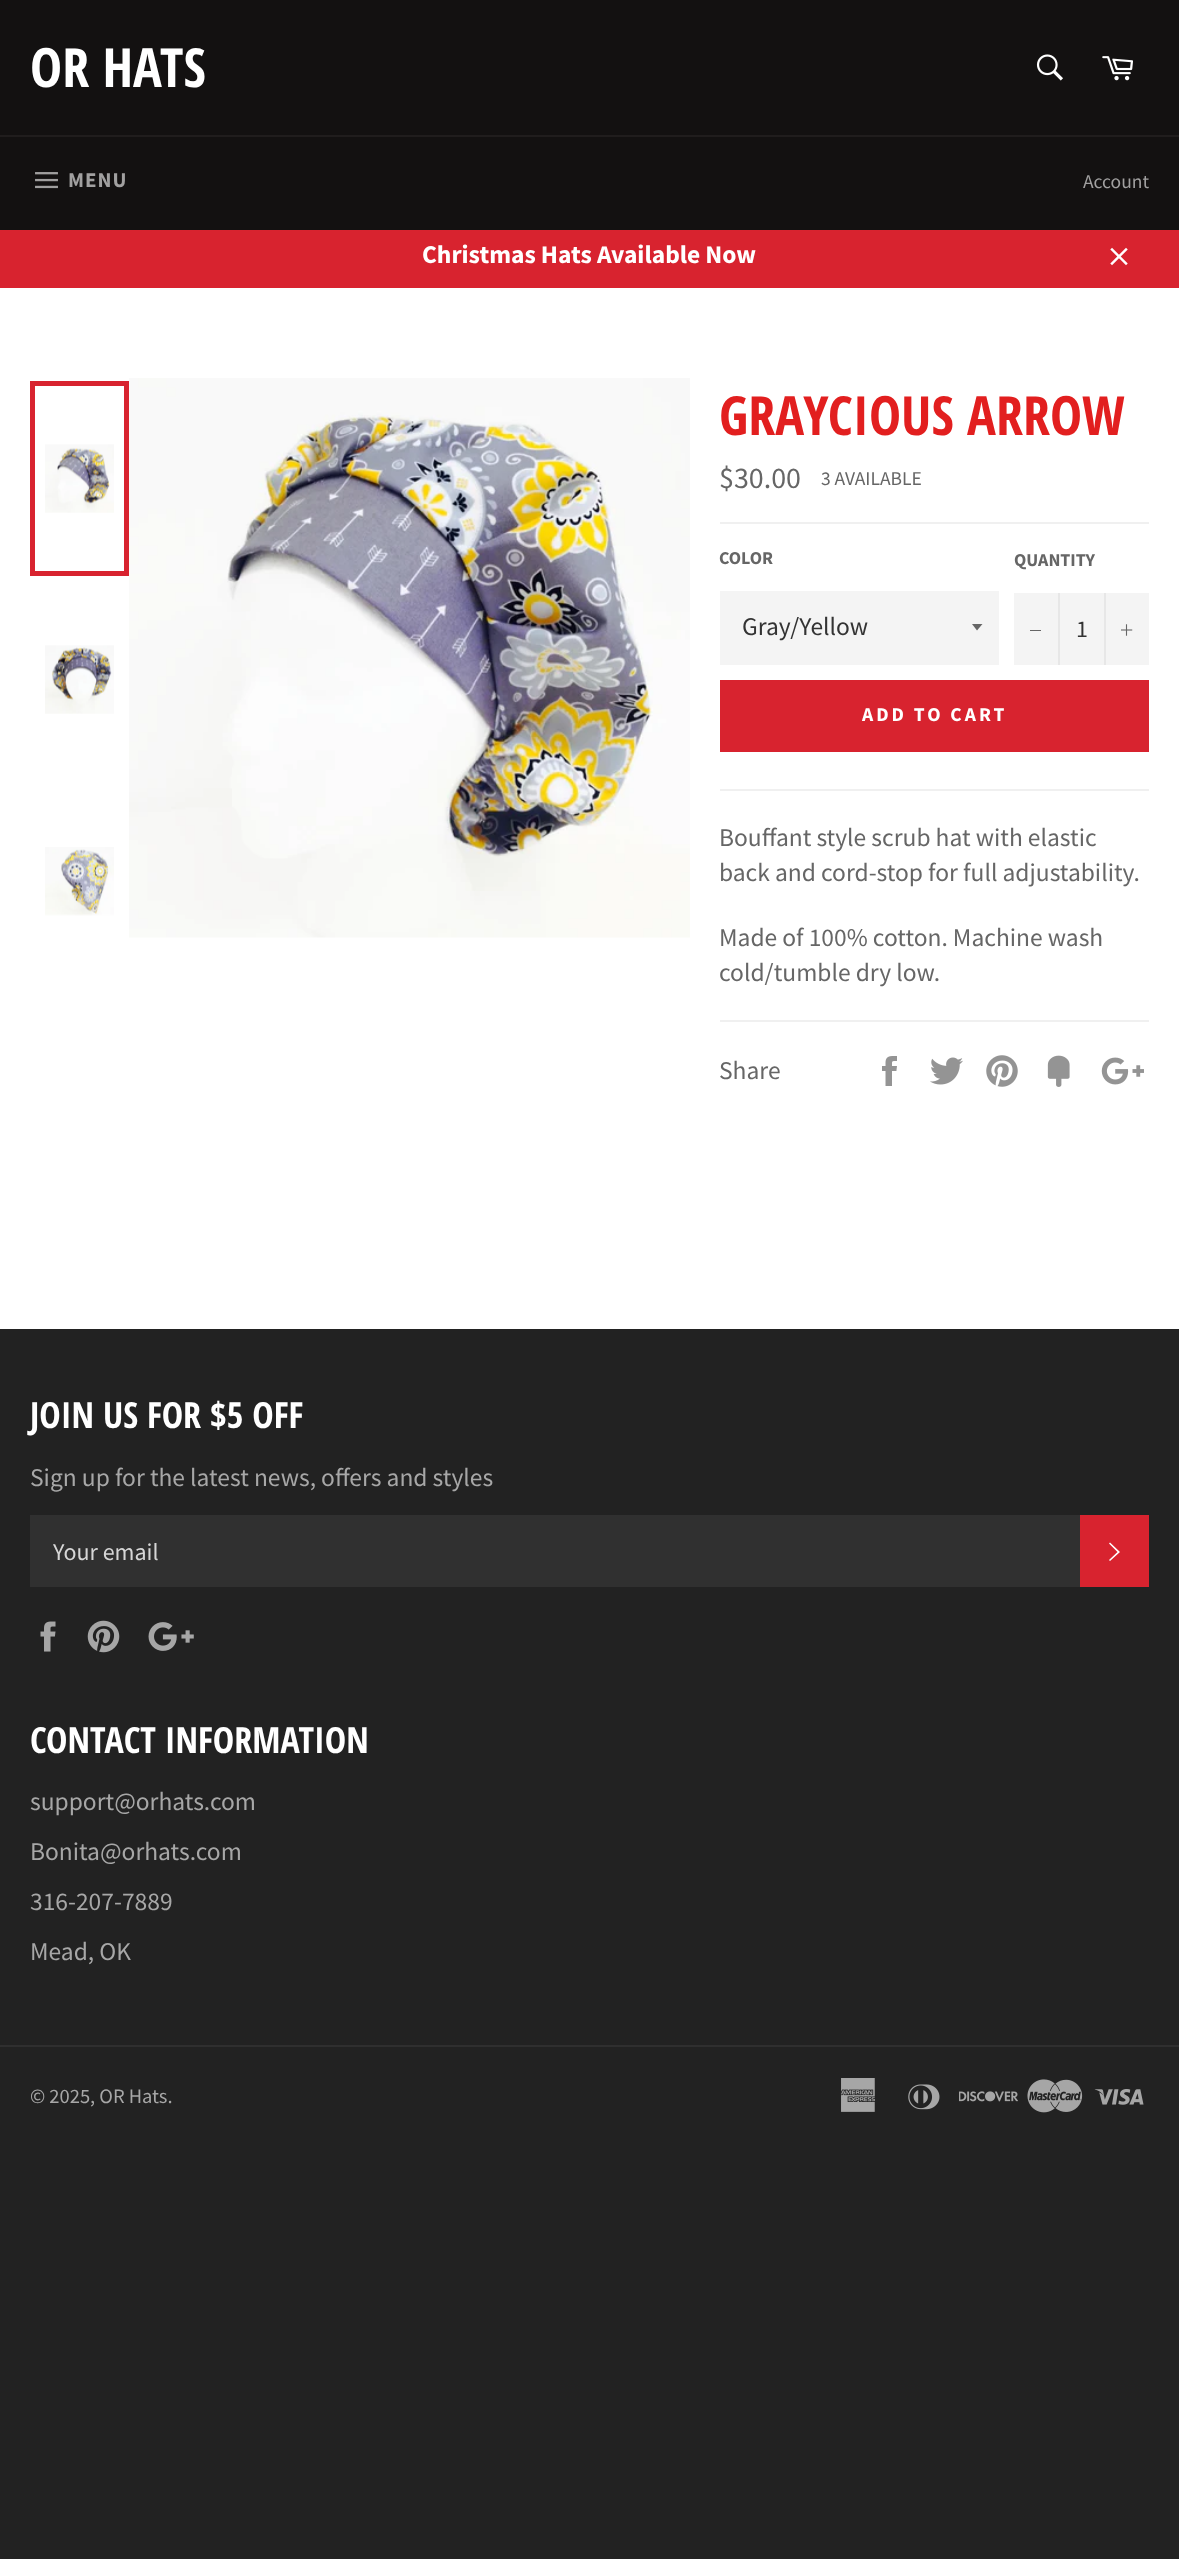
(async () => {
    const canvas = document.querySelector("canvas");
    canvas.width = 1179;
    canvas.height = 2559;
    const context = canvas.getContext("2d");
    context.miterLimit = 4;
    context.fontKerning = "normal";
    function write(s, x, y, font, color) {
        context.font = font;
        context.fillStyle = color;
        context.fillText(s, x, y);
    }
    function block(x, y, w, h, color) {
        context.fillStyle = color;
        context.fillRect(x, y, w, h);
    }
    async function photo(src, x, y, w, h) {
        const img = new Image();
        img.src = src;
        await img.decode();
        context.drawImage(img, x, y, w, h);
    }

    block(0, 0, 1179, 2559, "rgb(34, 34, 34)");
    block(0, 288, 1179, 1041, "rgb(255, 255, 255)");
    block(0, 0, 1179, 135, "rgb(19, 17, 17)");
    write("OR HATS", 30, 87, "bold 54px Open Sans Condensed", "rgb(255, 255, 255)");
    await photo("media/1.png", 1036, 54, 27, 27);
    await photo("media/2.png", 1102, 56, 31, 25);
    block(0, 137, 1179, 93, "rgb(19, 17, 17)");
    block(0, 135, 1179, 2, "rgb(32, 29, 29)");
    await photo("media/3.png", 35, 172, 23, 17);
    context.letterSpacing = "1px";
    write("MENU", 68, 187, "bold 21px Source Sans Pro", "rgb(161, 160, 160)");
    context.letterSpacing = "0px";
    write("Account", 1083, 188, "19.5px Source Sans Pro", "rgb(161, 160, 160)");
    block(0, 230, 1179, 58, "rgb(216, 35, 47)");
    write("Christmas Hats Available Now", 422, 263, "bold 25.5px Source Sans Pro", "rgb(255, 255, 255)");
    await photo("media/4.png", 1110, 247, 18, 19);
    await photo("media/5.png", 45, 444, 69, 69);
    context.strokeStyle = "rgb(216, 35, 47)";
    context.lineWidth = 5;
    context.strokeRect(32.5, 383.5, 94, 190);
    await photo("media/6.png", 45, 645, 69, 69);
    await photo("media/7.png", 45, 847, 69, 69);
    await photo("media/8.png", 129, 378, 561, 560);
    write("GRAYCIOUS ARROW", 719, 435, "bold 54px Open Sans Condensed", "rgb(226, 31, 31)");
    write("$30.00", 719, 488, "30px Source Sans Pro", "rgb(102, 102, 102)");
    write("3 AVAILABLE", 821, 485, "19.5px Source Sans Pro", "rgb(102, 102, 102)");
    block(720, 522, 429, 2, "rgb(240, 240, 240)");
    write("COLOR", 719, 564, "bold 18px Source Sans Pro", "rgb(102, 102, 102)");
    block(720, 591, 279, 74, "rgb(244, 244, 244)");
    context.fillStyle = "rgb(102, 102, 102)";
    context.beginPath();
    context.moveTo(972, 624);
    context.lineTo(977, 630.5);
    context.lineTo(982.5, 624);
    context.closePath();
    context.fill();
    write("Gray/Yellow", 742, 635, "25.5px Source Sans Pro", "rgb(51, 51, 51)");
    write("QUANTITY", 1014, 566, "bold 18px Source Sans Pro", "rgb(102, 102, 102)");
    block(1014, 593, 135, 72, "rgb(244, 244, 244)");
    block(1058, 593, 2, 72, "rgb(231, 231, 231)");
    block(1030, 630, 11, 1, "rgb(102, 102, 102)");
    write("1", 1076, 637, "24px Source Sans Pro", "rgb(51, 51, 51)");
    block(1104, 593, 2, 72, "rgb(231, 231, 231)");
    await photo("media/9.png", 1121, 624, 12, 12);
    block(720, 680, 429, 72, "rgb(216, 35, 47)");
    context.letterSpacing = "3px";
    write("ADD TO CART", 862, 721, "bold 19.5px Source Sans Pro", "rgb(255, 255, 255)");
    block(720, 789, 429, 2, "rgb(240, 240, 240)");
    context.letterSpacing = "0px";
    write("Bouffant style scrub hat with elastic", 719, 846, "25.5px Source Sans Pro", "rgb(102, 102, 102)");
    write("back and cord-stop for full adjustability.", 719, 881, "25.5px Source Sans Pro", "rgb(102, 102, 102)");
    write("Made of 100% cotton. Machine wash", 719, 946, "25.5px Source Sans Pro", "rgb(102, 102, 102)");
    write("cold/tumble dry low.", 719, 981, "25.5px Source Sans Pro", "rgb(102, 102, 102)");
    block(720, 1020, 429, 2, "rgb(240, 240, 240)");
    write("Share", 719, 1079, "25.5px Source Sans Pro", "rgb(102, 102, 102)");
    await photo("media/10.png", 882, 1056, 15, 30);
    await photo("media/11.png", 930, 1057, 33, 28);
    await photo("media/12.png", 986, 1055, 32, 32);
    await photo("media/13.png", 1047, 1055, 23, 32);
    await photo("media/14.png", 1101, 1057, 43, 28);
    write("JOIN US FOR $5 OFF", 30, 1428, "bold 36px Open Sans Condensed", "rgb(255, 255, 255)");
    write("Sign up for the latest news, offers and styles", 30, 1486, "25.5px Source Sans Pro", "rgb(167, 167, 167)");
    block(30, 1515, 1050, 72, "rgb(48, 48, 48)");
    write("Your email", 53, 1560, "24px Source Sans Pro", "rgb(214, 214, 214)");
    block(1080, 1515, 69, 72, "rgb(216, 35, 47)");
    context.fillStyle = "rgb(255, 255, 255)";
    context.beginPath();
    context.moveTo(1109, 1543.5);
    context.lineTo(1110, 1542.5);
    context.lineTo(1120, 1552);
    context.lineTo(1110, 1561);
    context.lineTo(1109, 1560);
    context.lineTo(1117.5, 1552);
    context.closePath();
    context.fill();
    await photo("media/15.png", 40, 1621, 16, 31);
    await photo("media/16.png", 87, 1620, 33, 33);
    await photo("media/17.png", 148, 1622, 46, 29);
    write("CONTACT INFORMATION", 30, 1753, "bold 36px Open Sans Condensed", "rgb(255, 255, 255)");
    write("support@orhats.com", 30, 1810, "25.5px Source Sans Pro", "rgb(167, 167, 167)");
    write("Bonita@orhats.com", 30, 1860, "25.5px Source Sans Pro", "rgb(167, 167, 167)");
    write("316-207-7889", 30, 1910, "25.5px Source Sans Pro", "rgb(167, 167, 167)");
    write("Mead, OK", 30, 1960, "25.5px Source Sans Pro", "rgb(167, 167, 167)");
    block(0, 2045, 1179, 2, "rgb(47, 47, 47)");
    write("© 2025, OR Hats.", 30, 2103, "20.5px Source Sans Pro", "rgb(167, 167, 167)");
    await photo("media/18.png", 841, 2078, 34, 34);
    await photo("media/19.png", 908, 2084, 32, 26);
    await photo("media/20.png", 959, 2091, 59, 11);
    await photo("media/21.png", 1027, 2079, 56, 34);
    await photo("media/22.png", 1094, 2089, 50, 16);
})();
